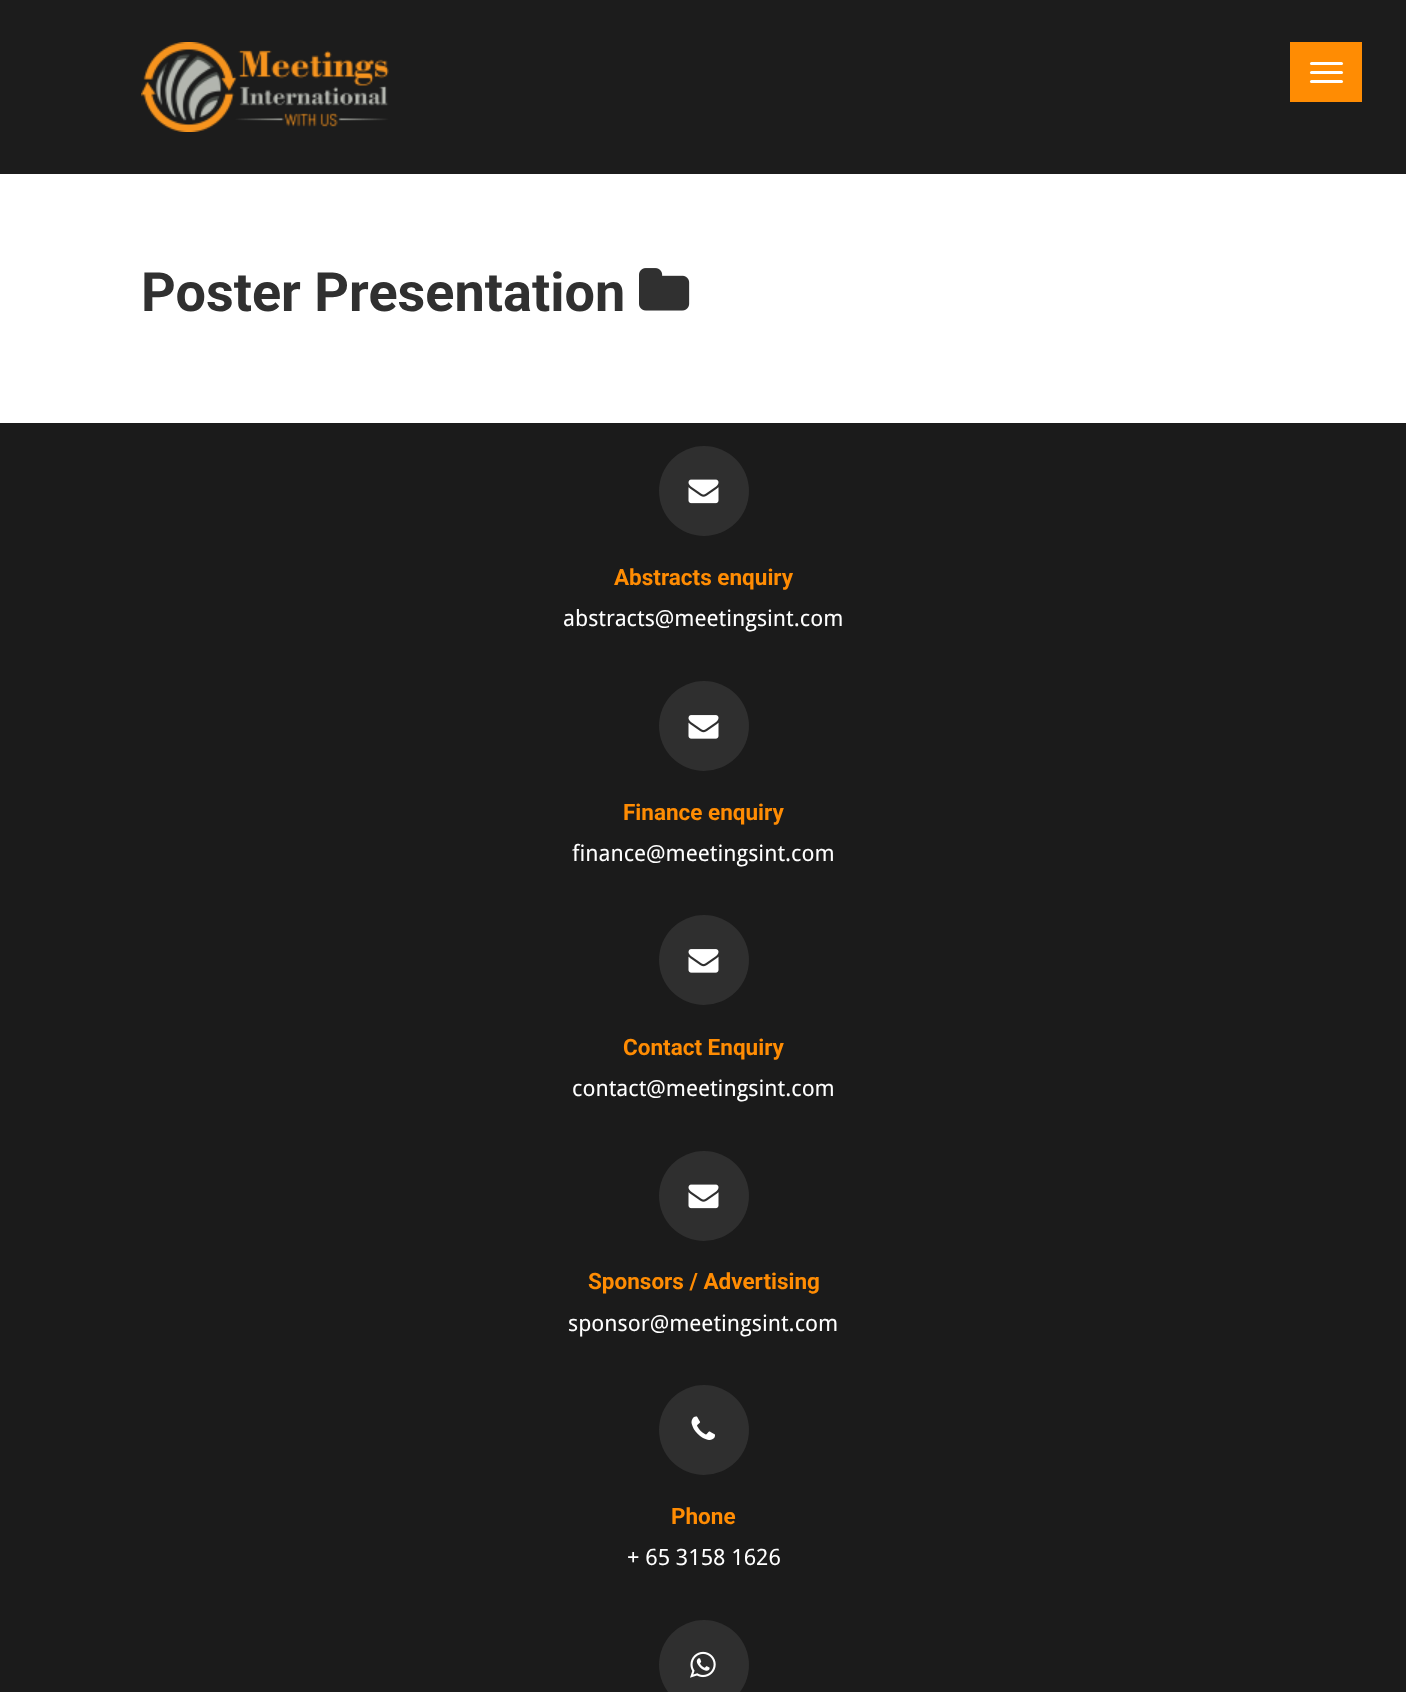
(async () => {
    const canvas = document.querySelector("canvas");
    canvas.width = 1406;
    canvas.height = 1692;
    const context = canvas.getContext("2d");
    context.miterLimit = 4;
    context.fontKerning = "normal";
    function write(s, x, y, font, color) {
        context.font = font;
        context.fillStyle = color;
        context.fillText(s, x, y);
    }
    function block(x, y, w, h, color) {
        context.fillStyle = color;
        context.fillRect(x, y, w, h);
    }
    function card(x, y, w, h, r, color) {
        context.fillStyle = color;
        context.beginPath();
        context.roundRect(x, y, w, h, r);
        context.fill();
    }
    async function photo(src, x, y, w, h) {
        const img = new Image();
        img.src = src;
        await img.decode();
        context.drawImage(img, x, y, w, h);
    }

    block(0, 0, 1406, 1692, "rgb(255, 255, 255)");
    block(0, 0, 1406, 174, "rgb(28, 28, 28)");
    await photo("media/1.png", 141, 42, 248, 90);
    block(1290, 42, 72, 60, "rgb(255, 140, 3)");
    card(1310, 62, 33, 3, 1.5, "rgb(255, 255, 255)");
    card(1310, 71, 33, 3, 1.5, "rgb(255, 255, 255)");
    card(1310, 80, 33, 3, 1.5, "rgb(255, 255, 255)");
    write("Poster Presentation", 141, 311, "bold 54px Roboto", "rgb(48, 48, 48)");
    await photo("media/2.png", 639, 268, 51, 43);
    block(0, 423, 1406, 1269, "rgb(27, 27, 27)");
    context.fillStyle = "rgb(47, 47, 47)";
    context.beginPath();
    context.arc(704, 491, 45, 0, Math.PI * 2);
    context.fill();
    await photo("media/3.png", 688, 479, 31, 25);
    write("Abstracts enquiry", 614, 585, "bold 22.5px Roboto", "rgb(255, 140, 3)");
    write("abstracts@meetingsint.com", 563, 626, "22.5px Droid Sans", "rgb(255, 255, 255)");
    context.fillStyle = "rgb(47, 47, 47)";
    context.beginPath();
    context.arc(704, 726, 45, 0, Math.PI * 2);
    context.fill();
    await photo("media/4.png", 688, 715, 31, 24);
    write("Finance enquiry", 623, 820, "bold 22.5px Roboto", "rgb(255, 140, 3)");
    write("finance@meetingsint.com", 572, 861, "22.5px Droid Sans", "rgb(255, 255, 255)");
    context.fillStyle = "rgb(47, 47, 47)";
    context.beginPath();
    context.arc(704, 960, 45, 0, Math.PI * 2);
    context.fill();
    await photo("media/4.png", 688, 949, 31, 24);
    write("Contact Enquiry", 623, 1055, "bold 22.5px Roboto", "rgb(255, 140, 3)");
    write("contact@meetingsint.com", 572, 1096, "22.5px Droid Sans", "rgb(255, 255, 255)");
    context.fillStyle = "rgb(47, 47, 47)";
    context.beginPath();
    context.arc(704, 1196, 45, 0, Math.PI * 2);
    context.fill();
    await photo("media/3.png", 688, 1184, 31, 25);
    write("Sponsors / Advertising", 588, 1289, "bold 22.5px Roboto", "rgb(255, 140, 3)");
    write("sponsor@meetingsint.com", 568, 1331, "22.5px Droid Sans", "rgb(255, 255, 255)");
    context.fillStyle = "rgb(47, 47, 47)";
    context.beginPath();
    context.arc(704, 1430, 45, 0, Math.PI * 2);
    context.fill();
    await photo("media/5.png", 691, 1416, 24, 24);
    write("Phone", 671, 1524, "bold 22.5px Roboto", "rgb(255, 140, 3)");
    write("+ 65 3158 1626", 627, 1565, "22.5px Droid Sans", "rgb(255, 255, 255)");
    context.fillStyle = "rgb(47, 47, 47)";
    context.beginPath();
    context.arc(704, 1665, 45, 0, Math.PI * 2);
    context.fill();
    await photo("media/6.png", 690, 1651, 26, 27);
})();
